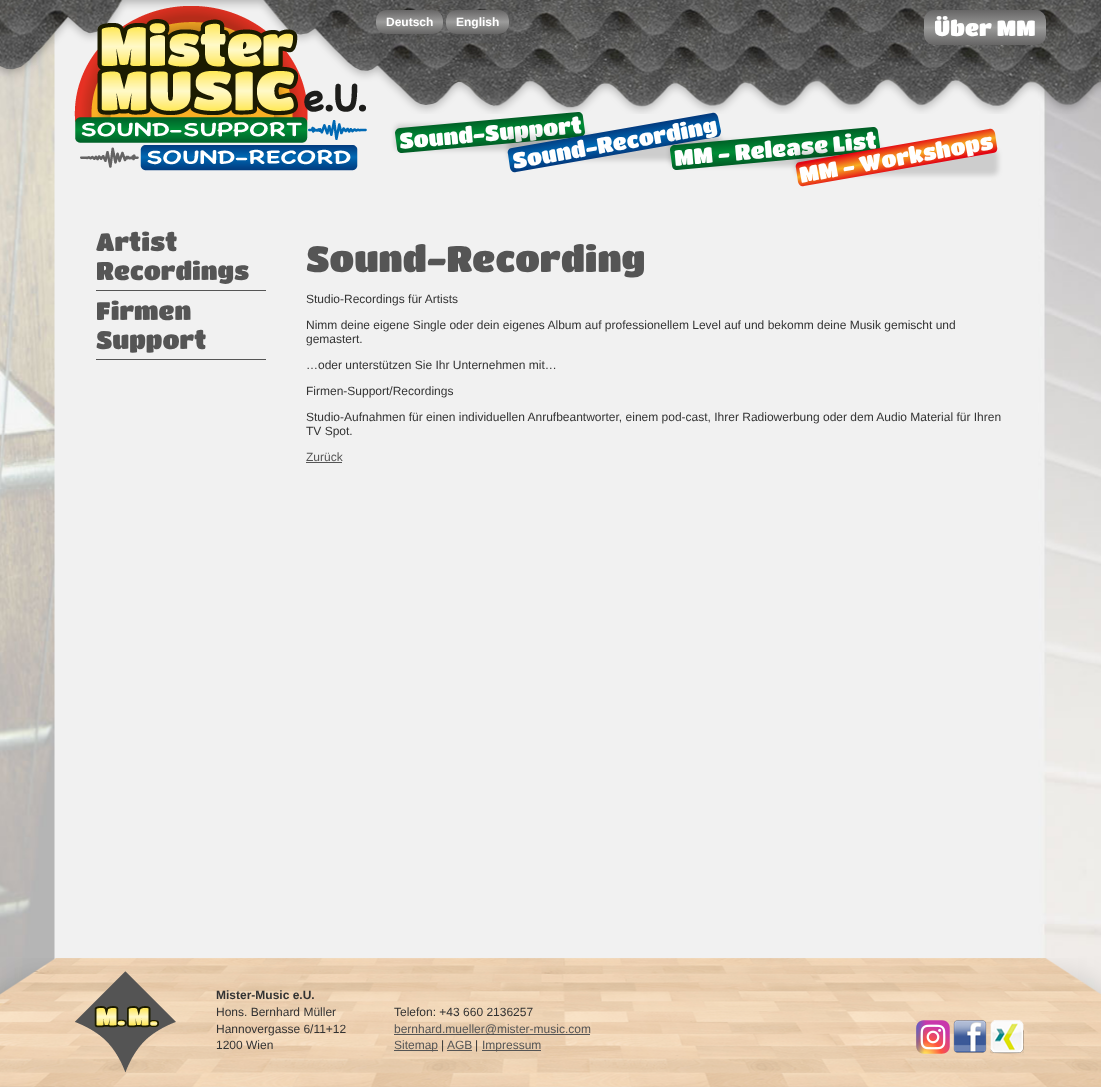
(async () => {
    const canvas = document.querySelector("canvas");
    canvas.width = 1101;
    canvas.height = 1087;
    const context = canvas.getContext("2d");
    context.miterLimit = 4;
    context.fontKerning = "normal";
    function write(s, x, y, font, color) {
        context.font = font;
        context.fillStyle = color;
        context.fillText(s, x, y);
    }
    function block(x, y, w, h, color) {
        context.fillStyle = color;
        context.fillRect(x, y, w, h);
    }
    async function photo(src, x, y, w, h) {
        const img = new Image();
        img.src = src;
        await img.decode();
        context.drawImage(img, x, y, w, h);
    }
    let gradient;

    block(0, 0, 1101, 1087, "rgb(255, 255, 255)");
    await photo("media/1.png", 0, 0, 1101, 1087);
    await photo("media/2.png", 0, 0, 1101, 114);
    await photo("media/3.png", 74, 6, 293, 165);
    gradient = context.createLinearGradient(410, 10, 410, 34);
    gradient.addColorStop(0, "rgb(102, 101, 101)");
    gradient.addColorStop(0.5, "rgb(156, 156, 155)");
    gradient.addColorStop(1, "rgb(102, 101, 101)");
    context.fillStyle = gradient;
    context.beginPath();
    context.roundRect(376, 10, 67, 24, 10);
    context.fill();
    write("Deutsch", 386, 26, "bold 12px Liberation Sans", "rgb(255, 255, 255)");
    gradient = context.createLinearGradient(478, 10, 478, 34);
    gradient.addColorStop(0, "rgb(102, 101, 101)");
    gradient.addColorStop(0.5, "rgb(156, 156, 155)");
    gradient.addColorStop(1, "rgb(102, 101, 101)");
    context.fillStyle = gradient;
    context.beginPath();
    context.roundRect(446, 10, 63, 24, 10);
    context.fill();
    write("English", 456, 26, "bold 12px Liberation Sans", "rgb(255, 255, 255)");
    gradient = context.createLinearGradient(985, 10, 985, 45);
    gradient.addColorStop(0, "rgb(102, 101, 101)");
    gradient.addColorStop(0.5, "rgb(156, 156, 155)");
    gradient.addColorStop(1, "rgb(102, 101, 101)");
    context.fillStyle = gradient;
    context.beginPath();
    context.roundRect(924, 10, 122, 35, 10);
    context.fill();
    write("Über MM", 934, 36, "22px Titan One", "rgb(255, 255, 255)");
    context.fillStyle = "rgba(0, 0, 0, 0.15)";
    context.filter = "blur(2.5px)";
    context.beginPath();
    context.roundRect(395, 125, 189, 25, 5);
    context.fill();
    context.filter = "none";
    gradient = context.createLinearGradient(489, 120, 491, 145);
    gradient.addColorStop(0, "rgb(0, 95, 38)");
    gradient.addColorStop(0.5, "rgb(0, 141, 54)");
    gradient.addColorStop(1, "rgb(0, 95, 38)");
    context.fillStyle = gradient;
    context.beginPath();
    context.moveTo(400, 128);
    context.lineTo(578, 112);
    context.bezierCurveTo(581, 112, 583, 114, 583, 117);
    context.lineTo(585, 132);
    context.bezierCurveTo(585, 134, 583, 137, 580, 137);
    context.lineTo(402, 153);
    context.bezierCurveTo(399, 153, 397, 151, 397, 148);
    context.lineTo(395, 133);
    context.bezierCurveTo(395, 131, 397, 128, 400, 128);
    context.closePath();
    context.fill();
    context.fillStyle = "rgb(255, 255, 255)";
    context.save();
    context.translate(400, 149);
    context.rotate(-5 * Math.PI / 180);
    context.fillText("Sound-Support", 0, 0);
    context.restore();
    context.fillStyle = "rgba(0, 0, 0, 0.15)";
    context.filter = "blur(2.5px)";
    context.beginPath();
    context.roundRect(508, 135, 213, 25, 5);
    context.fill();
    context.filter = "none";
    gradient = context.createLinearGradient(612, 130, 616, 155);
    gradient.addColorStop(0, "rgb(2, 58, 126)");
    gradient.addColorStop(0.5, "rgb(0, 105, 180)");
    gradient.addColorStop(1, "rgb(2, 58, 126)");
    context.fillStyle = gradient;
    context.beginPath();
    context.moveTo(512, 148);
    context.lineTo(712, 113);
    context.bezierCurveTo(715, 112, 717, 114, 718, 117);
    context.lineTo(721, 131);
    context.bezierCurveTo(721, 134, 719, 137, 717, 137);
    context.lineTo(516, 172);
    context.bezierCurveTo(513, 173, 511, 171, 510, 168);
    context.lineTo(508, 154);
    context.bezierCurveTo(507, 151, 509, 148, 512, 148);
    context.closePath();
    context.fill();
    context.fillStyle = "rgb(255, 255, 255)";
    context.save();
    context.translate(514, 169);
    context.rotate(-10 * Math.PI / 180);
    context.fillText("Sound-Recording", 0, 0);
    context.restore();
    context.fillStyle = "rgba(0, 0, 0, 0.15)";
    context.filter = "blur(2.5px)";
    context.beginPath();
    context.roundRect(670, 141, 209, 25, 5);
    context.fill();
    context.filter = "none";
    gradient = context.createLinearGradient(774, 136, 776, 161);
    gradient.addColorStop(0, "rgb(0, 95, 38)");
    gradient.addColorStop(0.5, "rgb(0, 141, 54)");
    gradient.addColorStop(1, "rgb(0, 95, 38)");
    context.fillStyle = gradient;
    context.beginPath();
    context.moveTo(675, 145);
    context.lineTo(873, 127);
    context.bezierCurveTo(876, 127, 878, 129, 878, 132);
    context.lineTo(880, 147);
    context.bezierCurveTo(880, 150, 878, 152, 875, 152);
    context.lineTo(677, 170);
    context.bezierCurveTo(674, 170, 672, 168, 672, 165);
    context.lineTo(670, 150);
    context.bezierCurveTo(670, 147, 672, 145, 675, 145);
    context.closePath();
    context.fill();
    context.fillStyle = "rgb(255, 255, 255)";
    context.save();
    context.translate(675, 166);
    context.rotate(-5 * Math.PI / 180);
    context.fillText("MM - Release List", 0, 0);
    context.restore();
    context.fillStyle = "rgba(0, 0, 0, 0.15)";
    context.filter = "blur(2.5px)";
    context.beginPath();
    context.roundRect(796, 150, 202, 25, 5);
    context.fill();
    context.filter = "none";
    gradient = context.createLinearGradient(894, 145, 899, 170);
    gradient.addColorStop(0, "rgb(227, 5, 19)");
    gradient.addColorStop(0.5, "rgb(248, 175, 34)");
    gradient.addColorStop(1, "rgb(227, 5, 19)");
    context.fillStyle = gradient;
    context.beginPath();
    context.moveTo(800, 162);
    context.lineTo(989, 129);
    context.bezierCurveTo(992, 128, 994, 130, 995, 133);
    context.lineTo(997, 147);
    context.bezierCurveTo(998, 150, 996, 153, 993, 153);
    context.lineTo(804, 186);
    context.bezierCurveTo(801, 187, 799, 185, 798, 182);
    context.lineTo(796, 168);
    context.bezierCurveTo(795, 165, 797, 162, 800, 162);
    context.closePath();
    context.fill();
    context.fillStyle = "rgb(255, 255, 255)";
    context.save();
    context.translate(801, 183);
    context.rotate(-10 * Math.PI / 180);
    context.fillText("MM - Workshops", 0, 0);
    context.restore();
    block(96, 290, 170, 1, "rgb(85, 85, 85)");
    write("Artist", 96, 251, "25px Titan One", "rgb(85, 85, 85)");
    write("Recordings", 96, 280, "25px Titan One", "rgb(85, 85, 85)");
    block(96, 359, 170, 1, "rgb(85, 85, 85)");
    write("Firmen", 96, 320, "25px Titan One", "rgb(85, 85, 85)");
    write("Support", 96, 349, "25px Titan One", "rgb(85, 85, 85)");
    write("Sound-Recording", 306, 272, "36px Titan One", "rgb(85, 85, 85)");
    write("Studio-Recordings für Artists", 306, 303, "12px Liberation Sans", "rgb(51, 51, 51)");
    write("Nimm deine eigene Single oder dein eigenes Album auf professionellem Level auf und bekomm deine Musik gemischt und", 306, 329, "12px Liberation Sans", "rgb(51, 51, 51)");
    write("gemastert.", 306, 343, "12px Liberation Sans", "rgb(51, 51, 51)");
    write("…oder unterstützen Sie Ihr Unternehmen mit…", 306, 369, "12px Liberation Sans", "rgb(51, 51, 51)");
    write("Firmen-Support/Recordings", 306, 395, "12px Liberation Sans", "rgb(51, 51, 51)");
    write("Studio-Aufnahmen für einen individuellen Anrufbeantworter, einem pod-cast, Ihrer Radiowerbung oder dem Audio Material für Ihren", 306, 421, "12px Liberation Sans", "rgb(51, 51, 51)");
    write("TV Spot.", 306, 435, "12px Liberation Sans", "rgb(51, 51, 51)");
    write("Zurück", 306, 461, "12px Liberation Sans", "rgb(85, 85, 85)");
    block(306, 462, 36, 1, "rgb(85, 85, 85)");
    await photo("media/4.png", 0, 958, 1101, 129);
    await photo("media/5.png", 75, 971, 101, 102);
    write("Mister-Music e.U.", 216, 999, "bold 12px Liberation Sans", "rgb(51, 51, 51)");
    write("Hons. Bernhard Müller", 216, 1016, "12px Liberation Sans", "rgb(51, 51, 51)");
    write("Hannovergasse 6/11+12", 216, 1033, "12px Liberation Sans", "rgb(51, 51, 51)");
    write("1200 Wien", 216, 1049, "12px Liberation Sans", "rgb(51, 51, 51)");
    write("Telefon: +43 660 2136257", 394, 1016, "12px Liberation Sans", "rgb(51, 51, 51)");
    block(394, 1034, 196, 1, "rgb(85, 85, 85)");
    write("bernhard.mueller@mister-music.com", 394, 1033, "12px Liberation Sans", "rgb(85, 85, 85)");
    block(394, 1050, 44, 1, "rgb(85, 85, 85)");
    write("Sitemap", 394, 1049, "12px Liberation Sans", "rgb(85, 85, 85)");
    write("|", 441, 1049, "12px Liberation Sans", "rgb(51, 51, 51)");
    write("AGB", 447, 1049, "12px Liberation Sans", "rgb(85, 85, 85)");
    block(447, 1050, 25, 1, "rgb(85, 85, 85)");
    write("|", 475, 1049, "12px Liberation Sans", "rgb(51, 51, 51)");
    block(482, 1050, 59, 1, "rgb(85, 85, 85)");
    write("Impressum", 482, 1049, "12px Liberation Sans", "rgb(85, 85, 85)");
    await photo("media/6.png", 916, 1020, 34, 34);
    await photo("media/7.png", 953, 1020, 34, 33);
    await photo("media/8.png", 990, 1020, 34, 34);
})();
